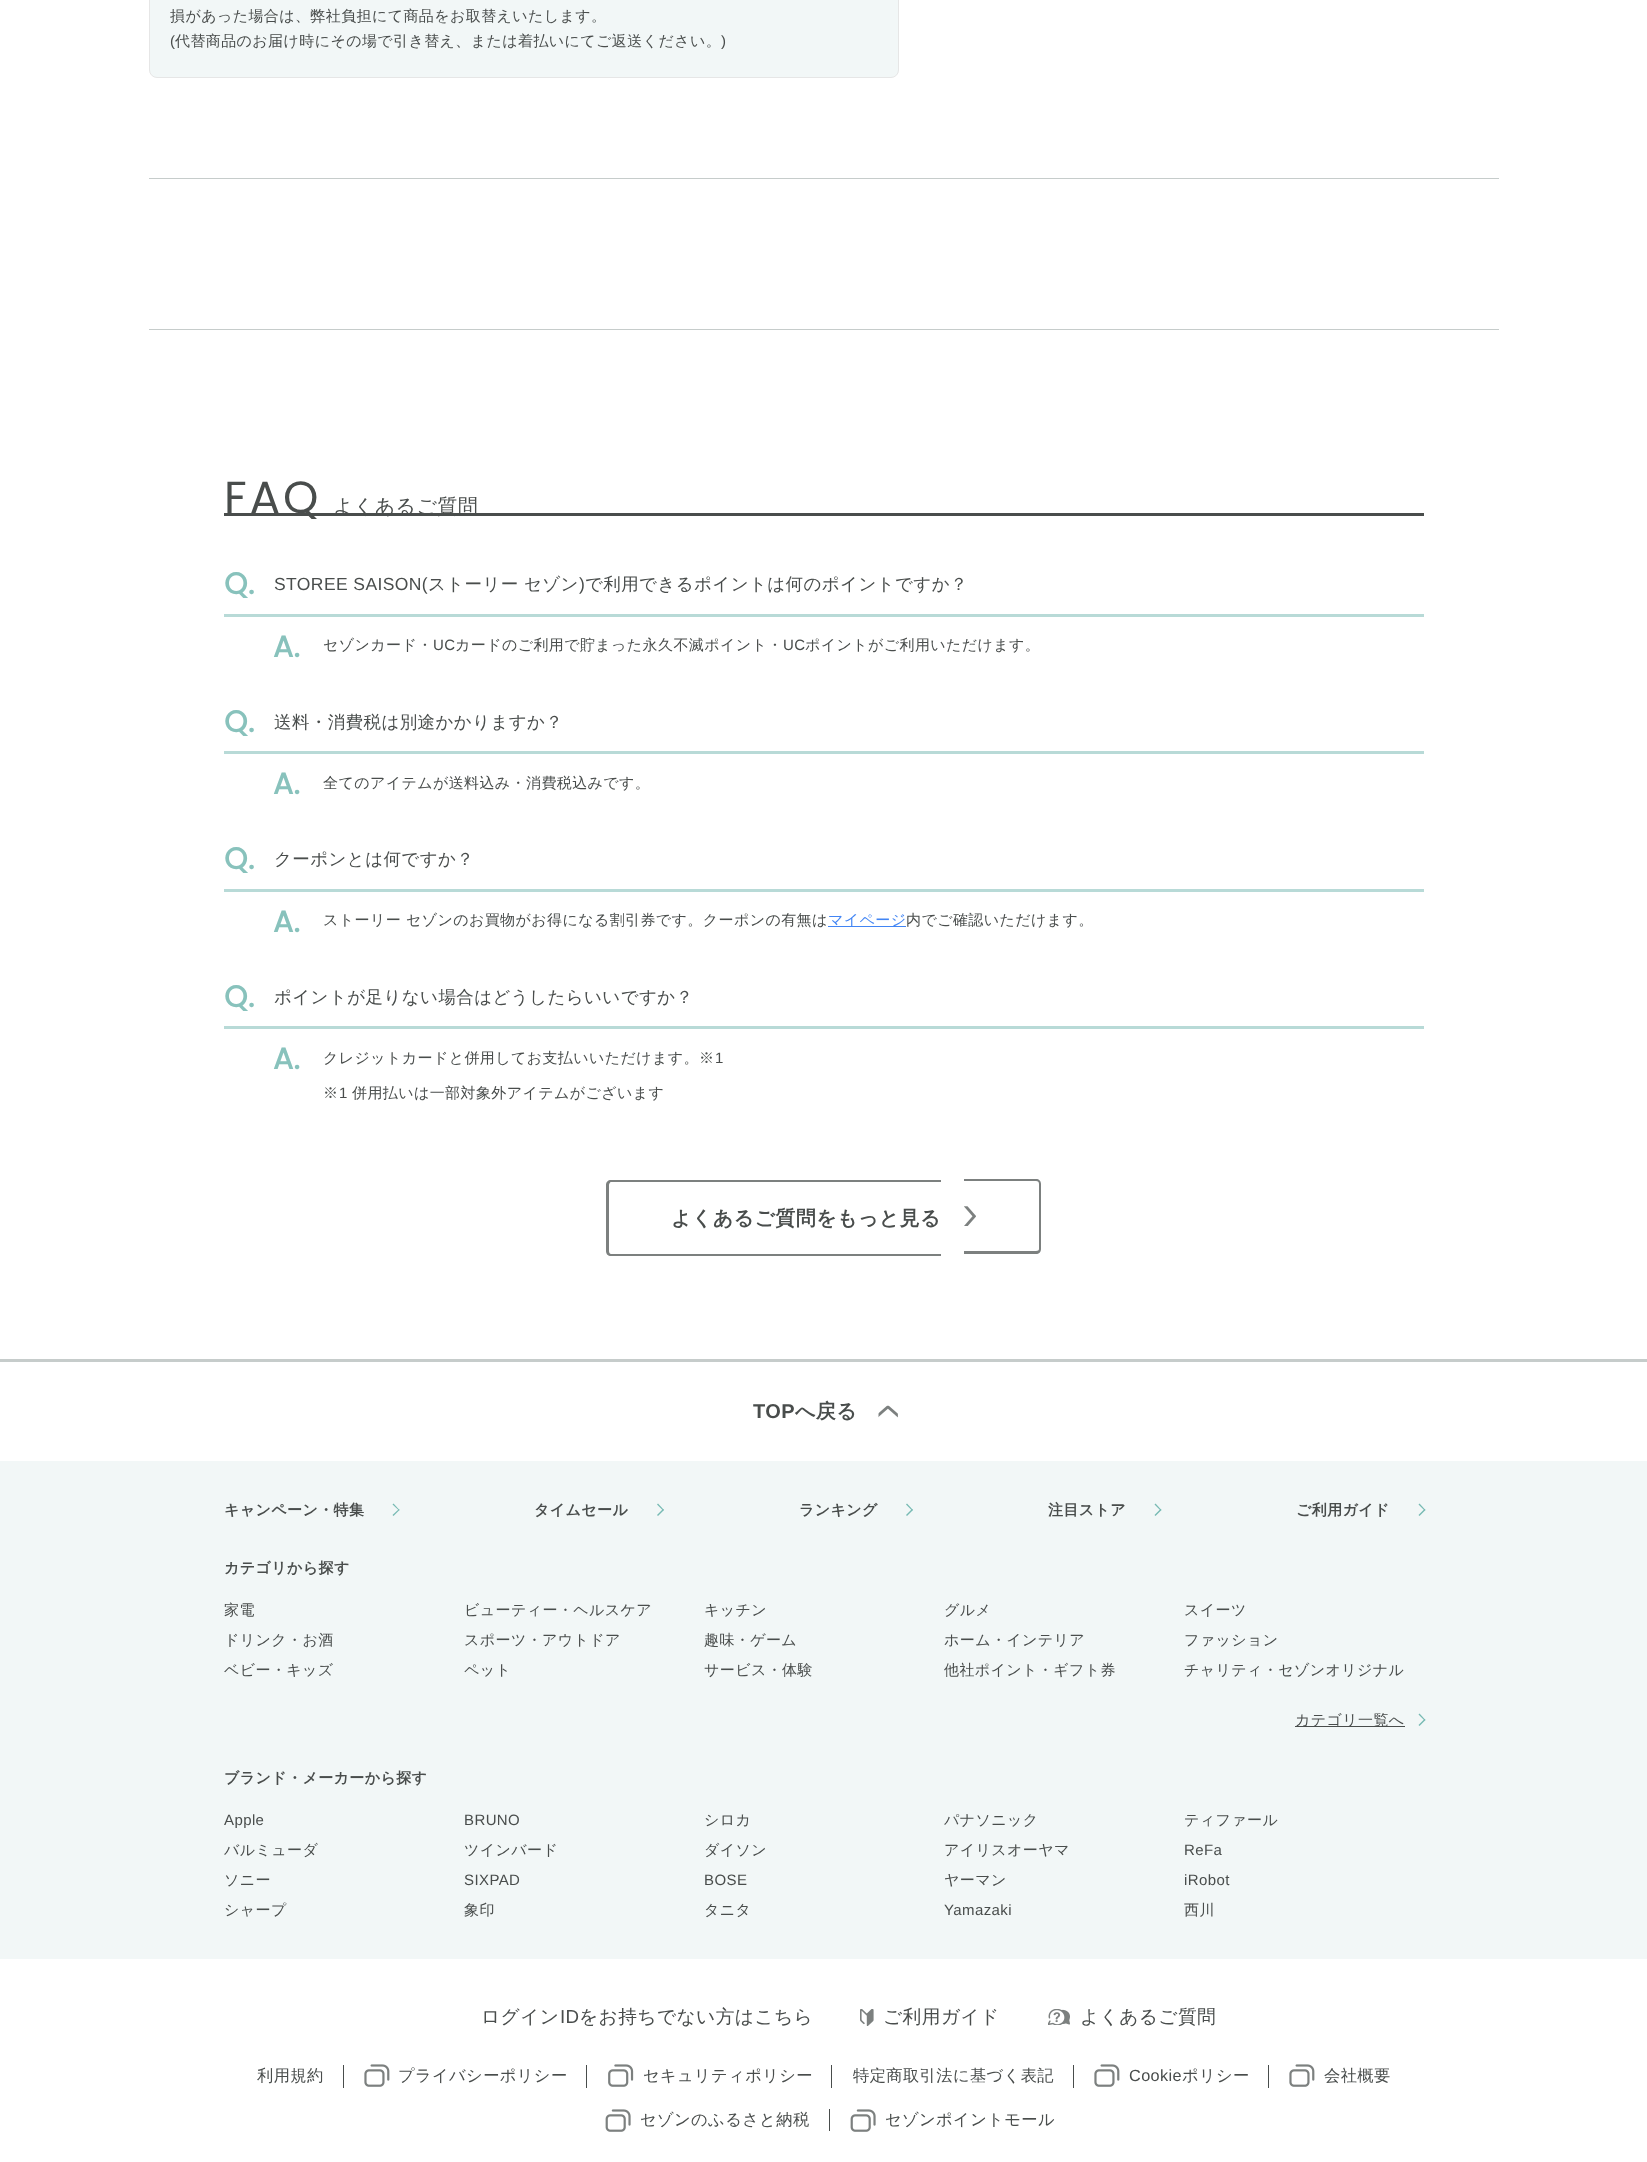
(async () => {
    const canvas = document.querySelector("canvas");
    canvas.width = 1647;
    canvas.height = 2162;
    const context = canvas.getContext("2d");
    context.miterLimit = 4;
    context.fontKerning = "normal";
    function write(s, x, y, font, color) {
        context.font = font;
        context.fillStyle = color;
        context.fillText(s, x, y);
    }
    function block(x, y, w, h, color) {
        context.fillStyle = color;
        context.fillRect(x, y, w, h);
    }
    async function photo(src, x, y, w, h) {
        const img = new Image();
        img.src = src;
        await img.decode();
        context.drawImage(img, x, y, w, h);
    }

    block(0, 0, 1647, 2162, "rgb(255, 255, 255)");
    context.fillStyle = "rgb(242, 247, 247)";
    context.beginPath();
    context.roundRect(149.5, -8.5, 749, 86, 7.5);
    context.fill();
    context.strokeStyle = "rgb(230, 230, 230)";
    context.stroke();
    context.letterSpacing = "0.4px";
    write("損があった場合は、弊社負担にて商品をお取替えいたします。", 170, 21, "500 15px WenQuanYi Zen Hei", "rgb(73, 77, 76)");
    write("(", 170, 46, "15px Liberation Sans", "rgb(73, 77, 76)");
    write("代替商品のお届け時にその場で引き替え、または着払いにてご返送ください。", 175, 46, "500 15px WenQuanYi Zen Hei", "rgb(73, 77, 76)");
    write(")", 721, 46, "15px Liberation Sans", "rgb(73, 77, 76)");
    block(149, 178, 1350, 1, "rgb(198, 204, 203)");
    block(149, 329, 1350, 1, "rgb(198, 204, 203)");
    context.letterSpacing = "3px";
    write("FAQ", 224, 513, "45px Poppins", "rgb(73, 77, 76)");
    context.letterSpacing = "0.4px";
    write("よくあるご質問", 333, 513, "500 20px WenQuanYi Zen Hei", "rgb(73, 77, 76)");
    block(224, 513, 1200, 3, "rgb(73, 77, 76)");
    block(224, 614, 1200, 3, "rgb(184, 218, 215)");
    write("Q.", 224, 594, "bold 30px Poppins", "rgb(136, 194, 188)");
    write("STOREE SAISON(", 274, 590, "17.5px Liberation Sans", "rgb(73, 77, 76)");
    write("ストーリー", 428, 590, "500 17.5px WenQuanYi Zen Hei", "rgb(73, 77, 76)");
    write("セゾン", 524, 590, "500 17.5px WenQuanYi Zen Hei", "rgb(73, 77, 76)");
    write(")", 579, 590, "17.5px Liberation Sans", "rgb(73, 77, 76)");
    write("で利用できるポイントは何のポイントですか？", 585, 590, "500 17.5px WenQuanYi Zen Hei", "rgb(73, 77, 76)");
    write("A.", 273, 657, "bold 30px Poppins", "rgb(136, 194, 188)");
    write("セゾンカード・", 323, 650, "500 15px WenQuanYi Zen Hei", "rgb(73, 77, 76)");
    write("UC", 433, 650, "15px Liberation Sans", "rgb(73, 77, 76)");
    write("カードのご利用で貯まった永久不滅ポイント・", 455, 650, "500 15px WenQuanYi Zen Hei", "rgb(73, 77, 76)");
    write("UC", 783, 650, "15px Liberation Sans", "rgb(73, 77, 76)");
    write("ポイントがご利用いただけます。", 805, 650, "500 15px WenQuanYi Zen Hei", "rgb(73, 77, 76)");
    block(224, 751, 1200, 3, "rgb(184, 218, 215)");
    write("Q.", 224, 732, "bold 30px Poppins", "rgb(136, 194, 188)");
    write("送料・消費税は別途かかりますか？", 274, 728, "500 17.5px WenQuanYi Zen Hei", "rgb(73, 77, 76)");
    write("A.", 273, 794, "bold 30px Poppins", "rgb(136, 194, 188)");
    write("全てのアイテムが送料込み・消費税込みです。", 323, 788, "500 15px WenQuanYi Zen Hei", "rgb(73, 77, 76)");
    block(224, 889, 1200, 3, "rgb(184, 218, 215)");
    write("Q.", 224, 869, "bold 30px Poppins", "rgb(136, 194, 188)");
    write("クーポンとは何ですか？", 274, 865, "500 17.5px WenQuanYi Zen Hei", "rgb(73, 77, 76)");
    write("A.", 273, 932, "bold 30px Poppins", "rgb(136, 194, 188)");
    write("ストーリー セゾンのお買物がお得になる割引券です。クーポンの有無は", 323, 925, "500 15px WenQuanYi Zen Hei", "rgb(73, 77, 76)");
    block(828, 926, 78, 1, "rgb(66, 133, 244)");
    write("マイページ", 828, 925, "500 15px WenQuanYi Zen Hei", "rgb(66, 133, 244)");
    write("内でご確認いただけます。", 906, 925, "500 15px WenQuanYi Zen Hei", "rgb(73, 77, 76)");
    block(224, 1026, 1200, 3, "rgb(184, 218, 215)");
    write("Q.", 224, 1007, "bold 30px Poppins", "rgb(136, 194, 188)");
    write("ポイントが足りない場合はどうしたらいいですか？", 274, 1003, "500 17.5px WenQuanYi Zen Hei", "rgb(73, 77, 76)");
    write("A.", 273, 1069, "bold 30px Poppins", "rgb(136, 194, 188)");
    write("クレジットカードと併用してお支払いいただけます。※", 323, 1063, "500 15px WenQuanYi Zen Hei", "rgb(73, 77, 76)");
    write("1", 715, 1063, "15px Liberation Sans", "rgb(73, 77, 76)");
    write("※", 323, 1098, "500 15px WenQuanYi Zen Hei", "rgb(73, 77, 76)");
    write("1", 339, 1098, "15px Liberation Sans", "rgb(73, 77, 76)");
    write("併用払いは一部対象外アイテムがございます", 352, 1098, "500 15px WenQuanYi Zen Hei", "rgb(73, 77, 76)");
    context.fillStyle = "rgb(124, 128, 127)";
    context.beginPath();
    context.moveTo(611, 1180);
    context.lineTo(941, 1180);
    context.lineTo(941, 1256);
    context.lineTo(611, 1256);
    context.bezierCurveTo(608, 1256, 606, 1254, 606, 1251);
    context.lineTo(606, 1185);
    context.bezierCurveTo(606, 1182, 608, 1180, 611, 1180);
    context.closePath();
    context.moveTo(611, 1182);
    context.lineTo(941, 1182);
    context.lineTo(941, 1254);
    context.lineTo(611, 1254);
    context.bezierCurveTo(610, 1254, 609, 1253, 609, 1251);
    context.lineTo(609, 1185);
    context.bezierCurveTo(609, 1184, 610, 1182, 611, 1182);
    context.closePath();
    context.fill("evenodd");
    context.beginPath();
    context.moveTo(964, 1179);
    context.lineTo(1036, 1179);
    context.bezierCurveTo(1039, 1179, 1041, 1181, 1041, 1184);
    context.lineTo(1041, 1249);
    context.bezierCurveTo(1041, 1252, 1039, 1254, 1036, 1254);
    context.lineTo(964, 1254);
    context.closePath();
    context.moveTo(964, 1181);
    context.lineTo(1036, 1181);
    context.bezierCurveTo(1038, 1181, 1039, 1182, 1039, 1184);
    context.lineTo(1039, 1249);
    context.bezierCurveTo(1039, 1250, 1038, 1251, 1036, 1251);
    context.lineTo(964, 1251);
    context.closePath();
    context.fill("evenodd");
    write("よくあるご質問をもっと見る", 671, 1225, "bold 20px WenQuanYi Zen Hei", "rgb(73, 77, 76)");
    await photo("media/1.png", 964, 1206, 12, 20);
    block(0, 1359, 1647, 3, "rgb(198, 204, 203)");
    write("TOP", 753, 1418, "bold 20px Liberation Sans", "rgb(73, 77, 76)");
    write("へ戻る", 795, 1418, "bold 20px WenQuanYi Zen Hei", "rgb(73, 77, 76)");
    await photo("media/2.png", 878, 1405, 20, 13);
    block(0, 1461, 1647, 498, "rgb(242, 247, 247)");
    write("キャンペーン・特集", 224, 1515, "bold 15px WenQuanYi Zen Hei", "rgb(73, 77, 76)");
    context.fillStyle = "rgb(119, 186, 179)";
    context.beginPath();
    context.moveTo(393.5, 1503.5);
    context.lineTo(399.5, 1510);
    context.lineTo(399, 1510.5);
    context.lineTo(392.5, 1504.5);
    context.closePath();
    context.fill();
    context.beginPath();
    context.moveTo(399, 1509);
    context.lineTo(399.5, 1510);
    context.lineTo(393.5, 1516);
    context.lineTo(392.5, 1515);
    context.closePath();
    context.fill();
    write("タイムセール", 534, 1515, "bold 15px WenQuanYi Zen Hei", "rgb(73, 77, 76)");
    context.fillStyle = "rgb(119, 186, 179)";
    context.beginPath();
    context.moveTo(658, 1503.5);
    context.lineTo(664, 1510);
    context.lineTo(663, 1510.5);
    context.lineTo(657, 1504.5);
    context.closePath();
    context.fill();
    context.beginPath();
    context.moveTo(663, 1509);
    context.lineTo(664, 1510);
    context.lineTo(658, 1516);
    context.lineTo(657, 1515);
    context.closePath();
    context.fill();
    write("ランキング", 799, 1515, "bold 15px WenQuanYi Zen Hei", "rgb(73, 77, 76)");
    context.fillStyle = "rgb(119, 186, 179)";
    context.beginPath();
    context.moveTo(907, 1503.5);
    context.lineTo(913, 1510);
    context.lineTo(912, 1510.5);
    context.lineTo(906, 1504.5);
    context.closePath();
    context.fill();
    context.beginPath();
    context.moveTo(912, 1509);
    context.lineTo(913, 1510);
    context.lineTo(907, 1516);
    context.lineTo(906, 1515);
    context.closePath();
    context.fill();
    write("注目ストア", 1048, 1515, "bold 15px WenQuanYi Zen Hei", "rgb(73, 77, 76)");
    context.fillStyle = "rgb(119, 186, 179)";
    context.beginPath();
    context.moveTo(1155.5, 1503.5);
    context.lineTo(1161.5, 1510);
    context.lineTo(1160.5, 1510.5);
    context.lineTo(1154.5, 1504.5);
    context.closePath();
    context.fill();
    context.beginPath();
    context.moveTo(1160.5, 1509);
    context.lineTo(1161.5, 1510);
    context.lineTo(1155.5, 1516);
    context.lineTo(1154.5, 1515);
    context.closePath();
    context.fill();
    write("ご利用ガイド", 1296, 1515, "bold 15px WenQuanYi Zen Hei", "rgb(73, 77, 76)");
    context.fillStyle = "rgb(119, 186, 179)";
    context.beginPath();
    context.moveTo(1419.5, 1503.5);
    context.lineTo(1425.5, 1510);
    context.lineTo(1424.5, 1510.5);
    context.lineTo(1418.5, 1504.5);
    context.closePath();
    context.fill();
    context.beginPath();
    context.moveTo(1424.5, 1509);
    context.lineTo(1425.5, 1510);
    context.lineTo(1419.5, 1516);
    context.lineTo(1418.5, 1515);
    context.closePath();
    context.fill();
    write("カテゴリから探す", 224, 1573, "bold 15px WenQuanYi Zen Hei", "rgb(73, 77, 76)");
    write("家電", 224, 1615, "500 15px WenQuanYi Zen Hei", "rgb(73, 77, 76)");
    write("ビューティー・ヘルスケア", 464, 1615, "500 15px WenQuanYi Zen Hei", "rgb(73, 77, 76)");
    write("キッチン", 704, 1615, "500 15px WenQuanYi Zen Hei", "rgb(73, 77, 76)");
    write("グルメ", 944, 1615, "500 15px WenQuanYi Zen Hei", "rgb(73, 77, 76)");
    write("スイーツ", 1184, 1615, "500 15px WenQuanYi Zen Hei", "rgb(73, 77, 76)");
    write("ドリンク・お酒", 224, 1645, "500 15px WenQuanYi Zen Hei", "rgb(73, 77, 76)");
    write("スポーツ・アウトドア", 464, 1645, "500 15px WenQuanYi Zen Hei", "rgb(73, 77, 76)");
    write("趣味・ゲーム", 704, 1645, "500 15px WenQuanYi Zen Hei", "rgb(73, 77, 76)");
    write("ホーム・インテリア", 944, 1645, "500 15px WenQuanYi Zen Hei", "rgb(73, 77, 76)");
    write("ファッション", 1184, 1645, "500 15px WenQuanYi Zen Hei", "rgb(73, 77, 76)");
    write("ベビー・キッズ", 224, 1675, "500 15px WenQuanYi Zen Hei", "rgb(73, 77, 76)");
    write("ペット", 464, 1675, "500 15px WenQuanYi Zen Hei", "rgb(73, 77, 76)");
    write("サービス・体験", 704, 1675, "500 15px WenQuanYi Zen Hei", "rgb(73, 77, 76)");
    write("他社ポイント・ギフト券", 944, 1675, "500 15px WenQuanYi Zen Hei", "rgb(73, 77, 76)");
    write("チャリティ・セゾンオリジナル", 1184, 1675, "500 15px WenQuanYi Zen Hei", "rgb(73, 77, 76)");
    block(1295, 1726, 110, 1, "rgb(73, 77, 76)");
    write("カテゴリ一覧へ", 1295, 1725, "500 15px WenQuanYi Zen Hei", "rgb(73, 77, 76)");
    context.fillStyle = "rgb(119, 186, 179)";
    context.beginPath();
    context.moveTo(1419.5, 1713.5);
    context.lineTo(1425.5, 1720);
    context.lineTo(1424.5, 1720.5);
    context.lineTo(1418.5, 1714.5);
    context.closePath();
    context.fill();
    context.beginPath();
    context.moveTo(1424.5, 1719);
    context.lineTo(1425.5, 1720);
    context.lineTo(1419.5, 1726);
    context.lineTo(1418.5, 1725);
    context.closePath();
    context.fill();
    write("ブランド・メーカーから探す", 224, 1783, "bold 15px WenQuanYi Zen Hei", "rgb(73, 77, 76)");
    write("Apple", 224, 1825, "15px Liberation Sans", "rgb(73, 77, 76)");
    write("BRUNO", 464, 1825, "15px Liberation Sans", "rgb(73, 77, 76)");
    write("シロカ", 704, 1825, "500 15px WenQuanYi Zen Hei", "rgb(73, 77, 76)");
    write("パナソニック", 944, 1825, "500 15px WenQuanYi Zen Hei", "rgb(73, 77, 76)");
    write("ティファール", 1184, 1825, "500 15px WenQuanYi Zen Hei", "rgb(73, 77, 76)");
    write("バルミューダ", 224, 1855, "500 15px WenQuanYi Zen Hei", "rgb(73, 77, 76)");
    write("ツインバード", 464, 1855, "500 15px WenQuanYi Zen Hei", "rgb(73, 77, 76)");
    write("ダイソン", 704, 1855, "500 15px WenQuanYi Zen Hei", "rgb(73, 77, 76)");
    write("アイリスオーヤマ", 944, 1855, "500 15px WenQuanYi Zen Hei", "rgb(73, 77, 76)");
    write("ReFa", 1184, 1855, "15px Liberation Sans", "rgb(73, 77, 76)");
    write("ソニー", 224, 1885, "500 15px WenQuanYi Zen Hei", "rgb(73, 77, 76)");
    write("SIXPAD", 464, 1885, "15px Liberation Sans", "rgb(73, 77, 76)");
    write("BOSE", 704, 1885, "15px Liberation Sans", "rgb(73, 77, 76)");
    write("ヤーマン", 944, 1885, "500 15px WenQuanYi Zen Hei", "rgb(73, 77, 76)");
    write("iRobot", 1184, 1885, "15px Liberation Sans", "rgb(73, 77, 76)");
    write("シャープ", 224, 1915, "500 15px WenQuanYi Zen Hei", "rgb(73, 77, 76)");
    write("象印", 464, 1915, "500 15px WenQuanYi Zen Hei", "rgb(73, 77, 76)");
    write("タニタ", 704, 1915, "500 15px WenQuanYi Zen Hei", "rgb(73, 77, 76)");
    write("Yamazaki", 944, 1915, "15px Liberation Sans", "rgb(73, 77, 76)");
    write("西川", 1184, 1915, "500 15px WenQuanYi Zen Hei", "rgb(73, 77, 76)");
    write("ログイン", 481, 2023, "500 18.75px WenQuanYi Zen Hei", "rgb(73, 77, 76)");
    write("ID", 560, 2023, "18.75px Liberation Sans", "rgb(73, 77, 76)");
    write("をお持ちでない方はこちら", 579, 2023, "500 18.75px WenQuanYi Zen Hei", "rgb(73, 77, 76)");
    await photo("media/3.png", 860, 2009, 14, 17);
    write("ご利用ガイド", 883, 2023, "500 18.75px WenQuanYi Zen Hei", "rgb(73, 77, 76)");
    await photo("media/4.png", 1048, 2009, 22, 16);
    write("よくあるご質問", 1080, 2023, "500 18.75px WenQuanYi Zen Hei", "rgb(73, 77, 76)");
    write("利用規約", 257, 2081, "500 16.25px WenQuanYi Zen Hei", "rgb(73, 77, 76)");
    block(343, 2065, 1, 23, "rgb(73, 77, 76)");
    await photo("media/5.png", 364, 2064, 26, 23);
    write("プライバシーポリシー", 398, 2081, "500 16.25px WenQuanYi Zen Hei", "rgb(73, 77, 76)");
    block(586, 2065, 1, 23, "rgb(73, 77, 76)");
    await photo("media/6.png", 608, 2064, 26, 23);
    write("セキュリティポリシー", 643, 2081, "500 16.25px WenQuanYi Zen Hei", "rgb(73, 77, 76)");
    block(831, 2065, 1, 23, "rgb(73, 77, 76)");
    write("特定商取引法に基づく表記", 853, 2081, "500 16.25px WenQuanYi Zen Hei", "rgb(73, 77, 76)");
    block(1073, 2065, 1, 23, "rgb(73, 77, 76)");
    await photo("media/5.png", 1094, 2064, 26, 23);
    write("Cookie", 1129, 2081, "16.25px Liberation Sans", "rgb(73, 77, 76)");
    write("ポリシー", 1182, 2081, "500 16.25px WenQuanYi Zen Hei", "rgb(73, 77, 76)");
    block(1268, 2065, 1, 23, "rgb(73, 77, 76)");
    await photo("media/5.png", 1289, 2064, 26, 23);
    write("会社概要", 1324, 2081, "500 16.25px WenQuanYi Zen Hei", "rgb(73, 77, 76)");
    await photo("media/7.png", 605, 2109, 26, 23);
    write("セゾンのふるさと納税", 640, 2125, "500 16.25px WenQuanYi Zen Hei", "rgb(73, 77, 76)");
    block(829, 2109, 1, 22, "rgb(73, 77, 76)");
    await photo("media/7.png", 850, 2109, 26, 23);
    write("セゾンポイントモール", 885, 2125, "500 16.25px WenQuanYi Zen Hei", "rgb(73, 77, 76)");
})();
